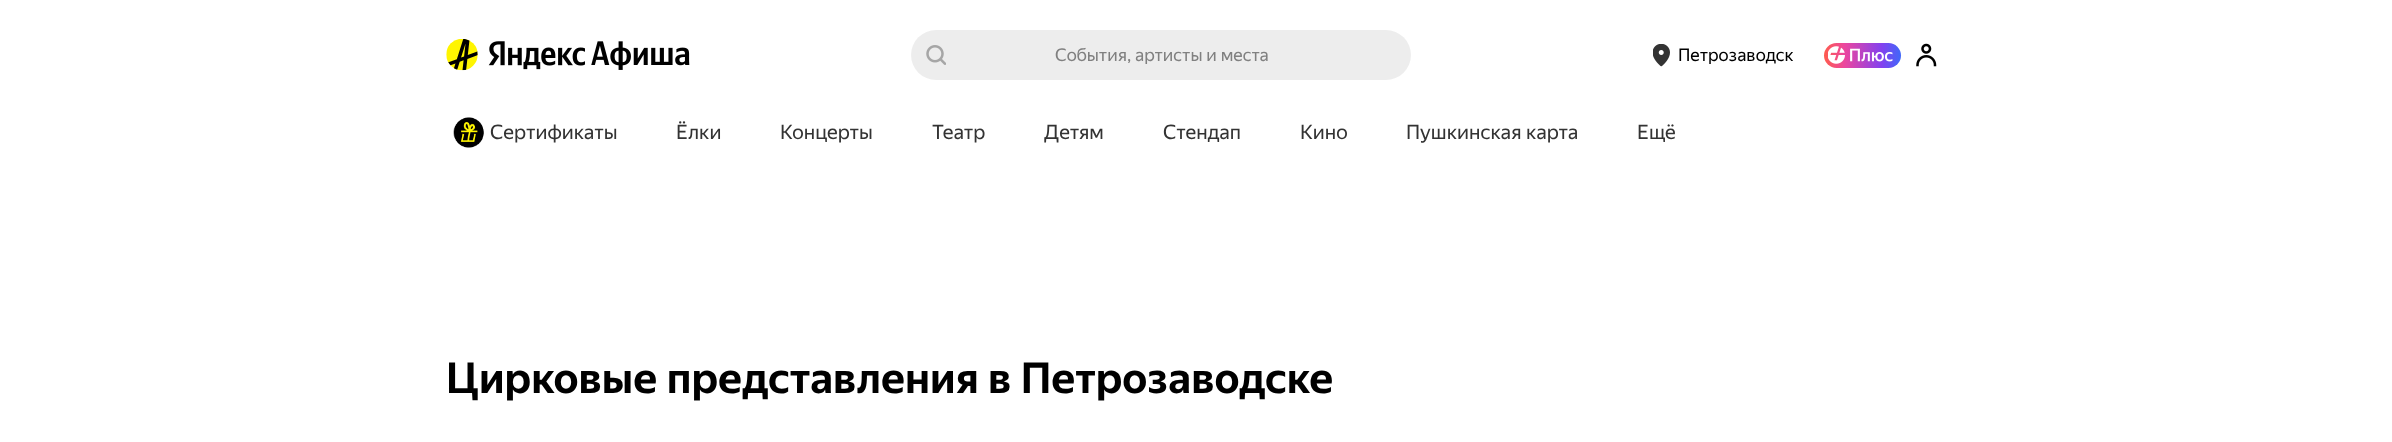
(async () => {
    const canvas = document.querySelector("canvas");
    canvas.width = 2392;
    canvas.height = 442;
    const context = canvas.getContext("2d");
    context.miterLimit = 4;
    context.fontKerning = "normal";
    function write(s, x, y, font, color) {
        context.font = font;
        context.fillStyle = color;
        context.fillText(s, x, y);
    }
    function block(x, y, w, h, color) {
        context.fillStyle = color;
        context.fillRect(x, y, w, h);
    }
    function card(x, y, w, h, r, color) {
        context.fillStyle = color;
        context.beginPath();
        context.roundRect(x, y, w, h, r);
        context.fill();
    }
    async function photo(src, x, y, w, h) {
        const img = new Image();
        img.src = src;
        await img.decode();
        context.drawImage(img, x, y, w, h);
    }
    let gradient;

    block(0, 0, 2392, 442, "rgb(255, 255, 255)");
    await photo("media/1.png", 446, 39, 32, 32);
    await photo("media/2.png", 488, 41, 202, 29);
    await photo("media/3.png", 926, 45, 20, 20);
    card(911, 30, 500, 50, 25, "rgba(0, 0, 0, 0.07)");
    write("События, артисты и места", 1055, 61, "17.5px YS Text", "rgb(128, 128, 128)");
    await photo("media/4.png", 1653, 44, 17, 23);
    write("Петрозаводск", 1678, 61, "17.5px YS Text", "rgb(0, 0, 0)");
    gradient = context.createLinearGradient(1824, 55, 1901, 55);
    gradient.addColorStop(0, "rgb(255, 92, 77)");
    gradient.addColorStop(0.27, "rgb(235, 70, 159)");
    gradient.addColorStop(0.75, "rgb(131, 65, 239)");
    gradient.addColorStop(1, "rgb(63, 104, 249)");
    context.fillStyle = gradient;
    context.beginPath();
    context.roundRect(1824, 43, 77, 25, 12.5);
    context.fill();
    await photo("media/5.png", 1828, 46, 17, 18);
    await photo("media/6.png", 1850, 48, 43, 14);
    await photo("media/7.png", 1916, 43, 21, 24);
    await photo("media/8.png", 453, 117, 31, 31);
    write("Сертификаты", 490, 139, "20px YS Text", "rgb(51, 51, 51)");
    write("Ёлки", 676, 139, "20px YS Text", "rgb(51, 51, 51)");
    write("Концерты", 780, 139, "20px YS Text", "rgb(51, 51, 51)");
    write("Театр", 932, 139, "20px YS Text", "rgb(51, 51, 51)");
    write("Детям", 1044, 139, "20px YS Text", "rgb(51, 51, 51)");
    write("Стендап", 1163, 139, "20px YS Text", "rgb(51, 51, 51)");
    write("Кино", 1300, 139, "20px YS Text", "rgb(51, 51, 51)");
    write("Пушкинская карта", 1406, 139, "20px YS Text", "rgb(51, 51, 51)");
    write("Ещё", 1637, 139, "20px YS Text", "rgb(51, 51, 51)");
    write("Цирковые представления в Петрозаводске", 446, 393, "bold 42.5px YS Text", "rgb(0, 0, 0)");
})();
